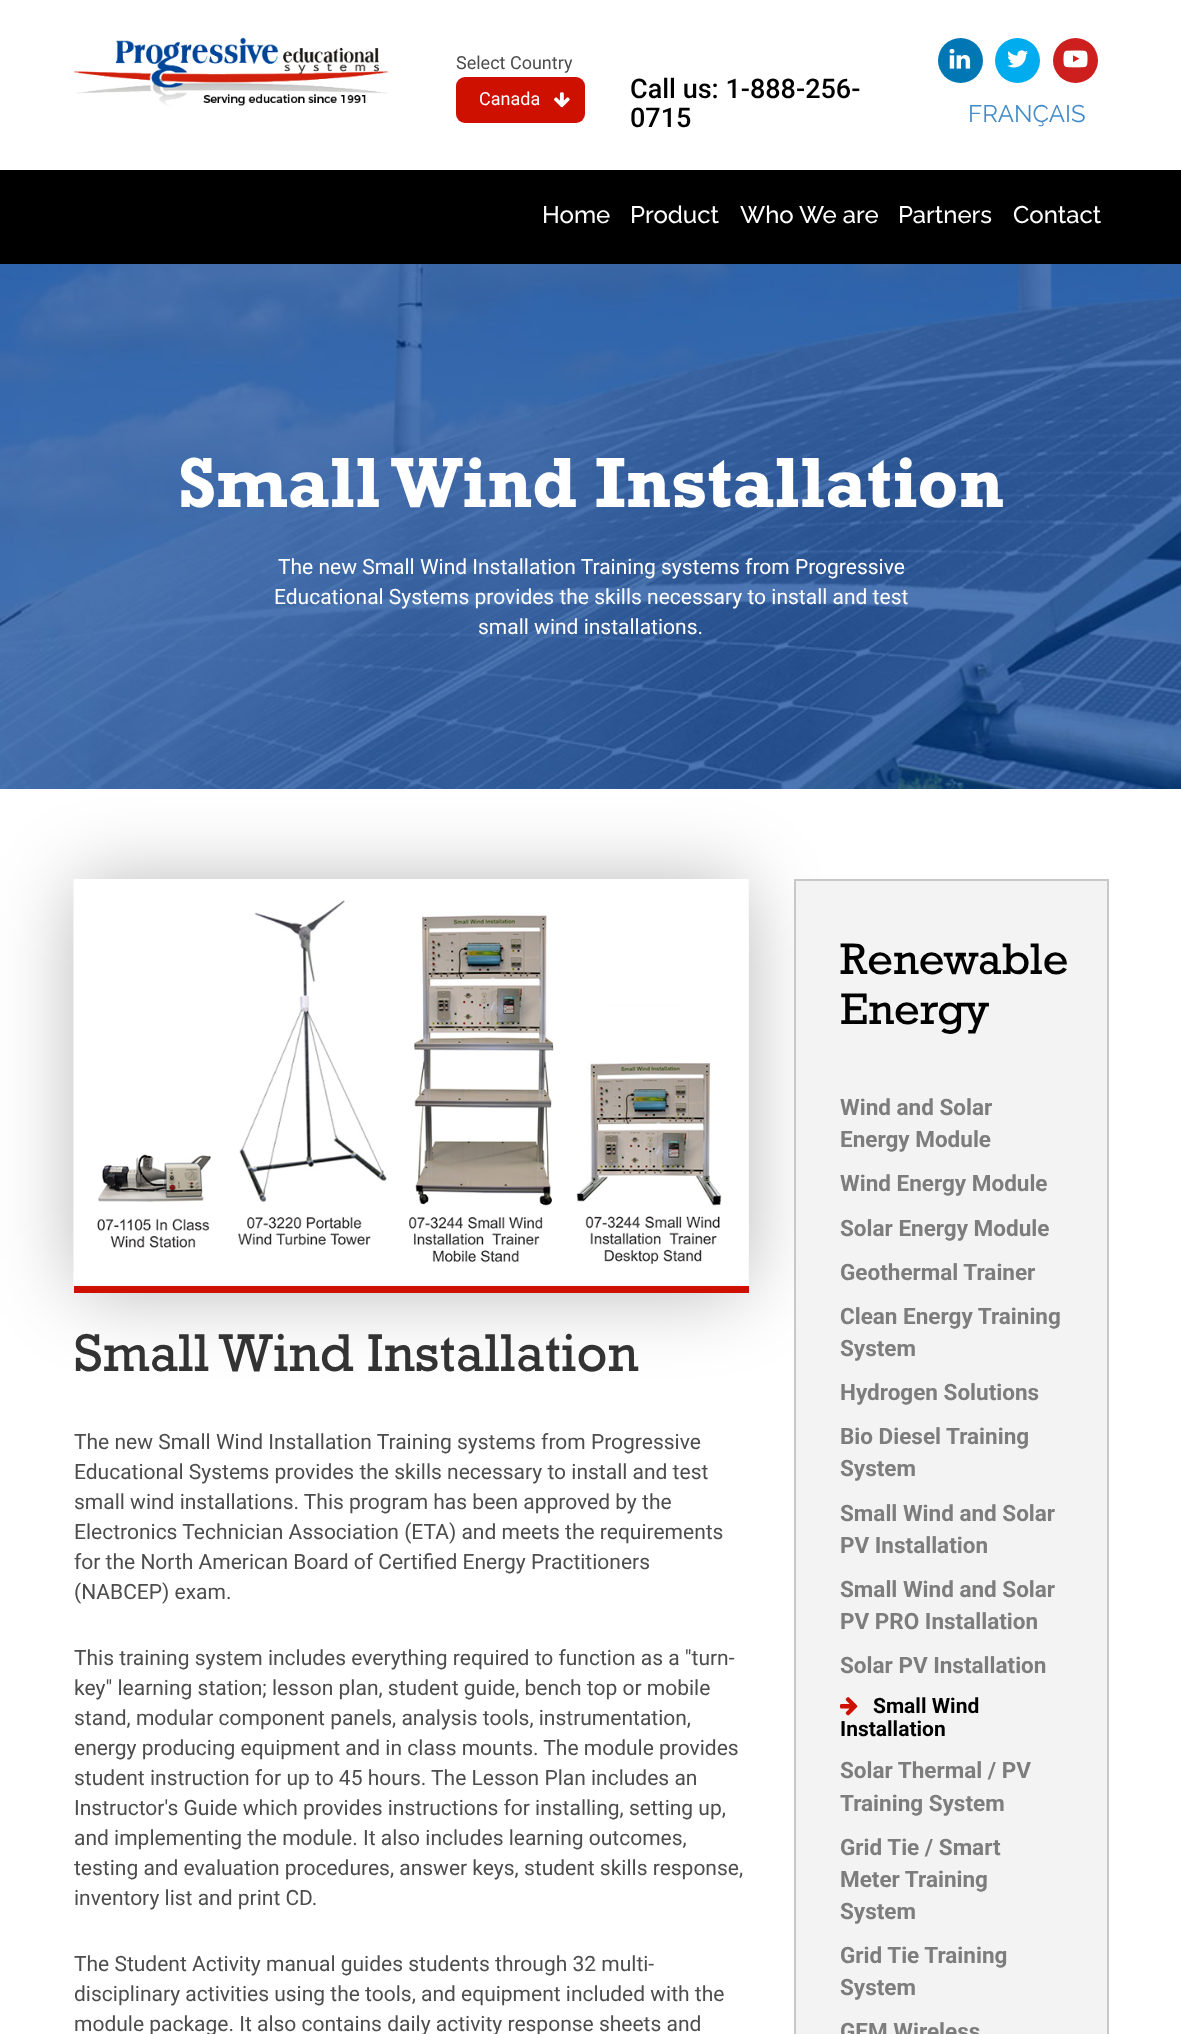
<!DOCTYPE html>
<meta charset="utf-8">
<style>body { margin: 0 } canvas { display: block }</style>
<canvas id="canvas" width="1181" height="2034"></canvas>
<script type="module">
  const canvas = document.getElementById("canvas");
  const ctx = canvas.getContext("2d");
  ctx.miterLimit = 4;
  ctx.fontKerning = "normal";
  async function loadImage(src) {
    const img = new Image();
    img.src = src;
    await img.decode();
    return img;
  }

  ctx.fillStyle = "#ffffff";
  ctx.fillRect(0, 0, 1181, 2034);
  ctx.drawImage(await loadImage("img1.png"), 73, 37, 316, 69);
  ctx.font = "18px Roboto";
  ctx.fillStyle = "#4d4d4d";
  ctx.fillText("Select Country", 456, 69);
  ctx.fillStyle = "#cd1000";
  ctx.beginPath();
  ctx.roundRect(456, 77, 129, 46, 9);
  ctx.fill();
  ctx.fillStyle = "#ffffff";
  ctx.fillText("Canada", 479, 105);
  ctx.drawImage(await loadImage("img2.png"), 554, 92, 16, 16);
  ctx.font = "500 27px Roboto";
  ctx.fillStyle = "#000000";
  ctx.fillText("Call us: 1-888-256-", 630, 98);
  ctx.fillText("0715", 630, 127);
  ctx.fillStyle = "#0077b5";
  ctx.beginPath();
  ctx.arc(960.5, 60.5, 22.5, 0, Math.PI * 2);
  ctx.fill();
  ctx.drawImage(await loadImage("img3.png"), 949, 48, 22, 21);
  ctx.fillStyle = "#00aced";
  ctx.beginPath();
  ctx.arc(1017.5, 60.5, 22.5, 0, Math.PI * 2);
  ctx.fill();
  ctx.drawImage(await loadImage("img4.png"), 1007, 50, 21, 18);
  ctx.fillStyle = "#cd201e";
  ctx.beginPath();
  ctx.arc(1075.5, 60.5, 22.5, 0, Math.PI * 2);
  ctx.fill();
  ctx.drawImage(await loadImage("img5.png"), 1063, 50, 25, 18);
  ctx.font = "24px Raleway";
  ctx.fillStyle = "#428bca";
  ctx.fillText("FRANÇAIS", 968, 122);
  ctx.fillStyle = "#000000";
  ctx.fillRect(0, 170, 1181, 94);
  ctx.font = "500 24px Raleway";
  ctx.fillStyle = "#ffffff";
  ctx.fillText("Home", 542, 223);
  ctx.fillText("Product", 630, 223);
  ctx.fillText("Who We are", 740, 223);
  ctx.fillText("Partners", 898, 223);
  ctx.fillText("Contact", 1013, 223);
  ctx.drawImage(await loadImage("img6.png"), 0, 264, 1181, 525);
  ctx.font = "bold 72px Rockwell";
  ctx.fillText("Small Wind Installation", 178, 507);
  ctx.font = "21px Roboto";
  ctx.fillText("The new Small Wind Installation Training systems from Progressive", 278, 574);
  ctx.fillText("Educational Systems provides the skills necessary to install and test", 274, 604);
  ctx.fillText("small wind installations.", 478, 634);
  ctx.fillStyle = "rgba(0, 0, 0, 0.3)";
  ctx.filter = "blur(41px)";
  ctx.beginPath();
  ctx.rect(78, 884, 666, 405);
  ctx.fill();
  ctx.filter = "none";
  ctx.fillStyle = "#fafafa";
  ctx.fillRect(74, 879, 675, 407);
  ctx.fillStyle = "#cd1000";
  ctx.fillRect(74, 1286, 675, 7);
  ctx.drawImage(await loadImage("img7.png"), 73, 879, 675, 406);
  ctx.font = "54px Rockwell";
  ctx.fillStyle = "#333333";
  ctx.fillText("Small Wind Installation", 74, 1371);
  ctx.font = "21px Roboto";
  ctx.fillStyle = "#4d4d4d";
  ctx.fillText("The new Small Wind Installation Training systems from Progressive", 74, 1449);
  ctx.fillText("Educational Systems provides the skills necessary to install and test", 74, 1479);
  ctx.fillText("small wind installations. This program has been approved by the", 74, 1509);
  ctx.fillText("Electronics Technician Association (ETA) and meets the requirements", 74, 1539);
  ctx.fillText("for the North American Board of Certified Energy Practitioners", 74, 1569);
  ctx.fillText("(NABCEP) exam.", 74, 1599);
  ctx.fillText("This training system includes everything required to function as a \"turn-", 74, 1665);
  ctx.fillText("key\" learning station; lesson plan, student guide, bench top or mobile", 74, 1695);
  ctx.fillText("stand, modular component panels, analysis tools, instrumentation,", 74, 1725);
  ctx.fillText("energy producing equipment and in class mounts. The module provides", 74, 1755);
  ctx.fillText("student instruction for up to 45 hours. The Lesson Plan includes an", 74, 1785);
  ctx.fillText("Instructor's Guide which provides instructions for installing, setting up,", 74, 1815);
  ctx.fillText("and implementing the module. It also includes learning outcomes,", 74, 1845);
  ctx.fillText("testing and evaluation procedures, answer keys, student skills response,", 74, 1875);
  ctx.fillText("inventory list and print CD.", 74, 1905);
  ctx.fillText("The Student Activity manual guides students through 32 multi-", 74, 1971);
  ctx.fillText("disciplinary activities using the tools, and equipment included with the", 74, 2001);
  ctx.fillText("module package. It also contains daily activity response sheets and", 74, 2031);
  ctx.fillStyle = "#f3f3f3";
  ctx.beginPath();
  ctx.rect(795, 880, 313, 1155);
  ctx.fill();
  ctx.strokeStyle = "#c8c8c8";
  ctx.lineWidth = 2;
  ctx.stroke();
  ctx.font = "45px Rockwell";
  ctx.fillStyle = "#000000";
  ctx.fillText("Renewable", 840, 974);
  ctx.fillText("Energy", 840, 1024);
  ctx.font = "bold 22.5px Roboto";
  ctx.fillStyle = "#7d7d7d";
  ctx.fillText("Wind and Solar", 840, 1115);
  ctx.fillText("Energy Module", 840, 1147);
  ctx.fillText("Wind Energy Module", 840, 1191);
  ctx.fillText("Solar Energy Module", 840, 1236);
  ctx.fillText("Geothermal Trainer", 840, 1280);
  ctx.fillText("Clean Energy Training", 840, 1324);
  ctx.fillText("System", 840, 1356);
  ctx.fillText("Hydrogen Solutions", 840, 1400);
  ctx.fillText("Bio Diesel Training", 840, 1444);
  ctx.fillText("System", 840, 1476);
  ctx.fillText("Small Wind and Solar", 840, 1521);
  ctx.fillText("PV Installation", 840, 1553);
  ctx.fillText("Small Wind and Solar", 840, 1597);
  ctx.fillText("PV PRO Installation", 840, 1629);
  ctx.fillText("Solar PV Installation", 840, 1673);
  ctx.drawImage(await loadImage("img8.png"), 840, 1697, 18, 19);
  ctx.font = "bold 21px Roboto";
  ctx.fillStyle = "#000000";
  ctx.fillText("Small Wind", 873, 1713);
  ctx.fillText("Installation", 840, 1736);
  ctx.font = "bold 22.5px Roboto";
  ctx.fillStyle = "#7d7d7d";
  ctx.fillText("Solar Thermal / PV", 840, 1778);
  ctx.fillText("Training System", 840, 1811);
  ctx.fillText("Grid Tie / Smart", 840, 1855);
  ctx.fillText("Meter Training", 840, 1887);
  ctx.fillText("System", 840, 1919);
  ctx.fillText("Grid Tie Training", 840, 1963);
  ctx.fillText("System", 840, 1995);
  ctx.fillText("GEM Wireless", 840, 2039);
</script>
